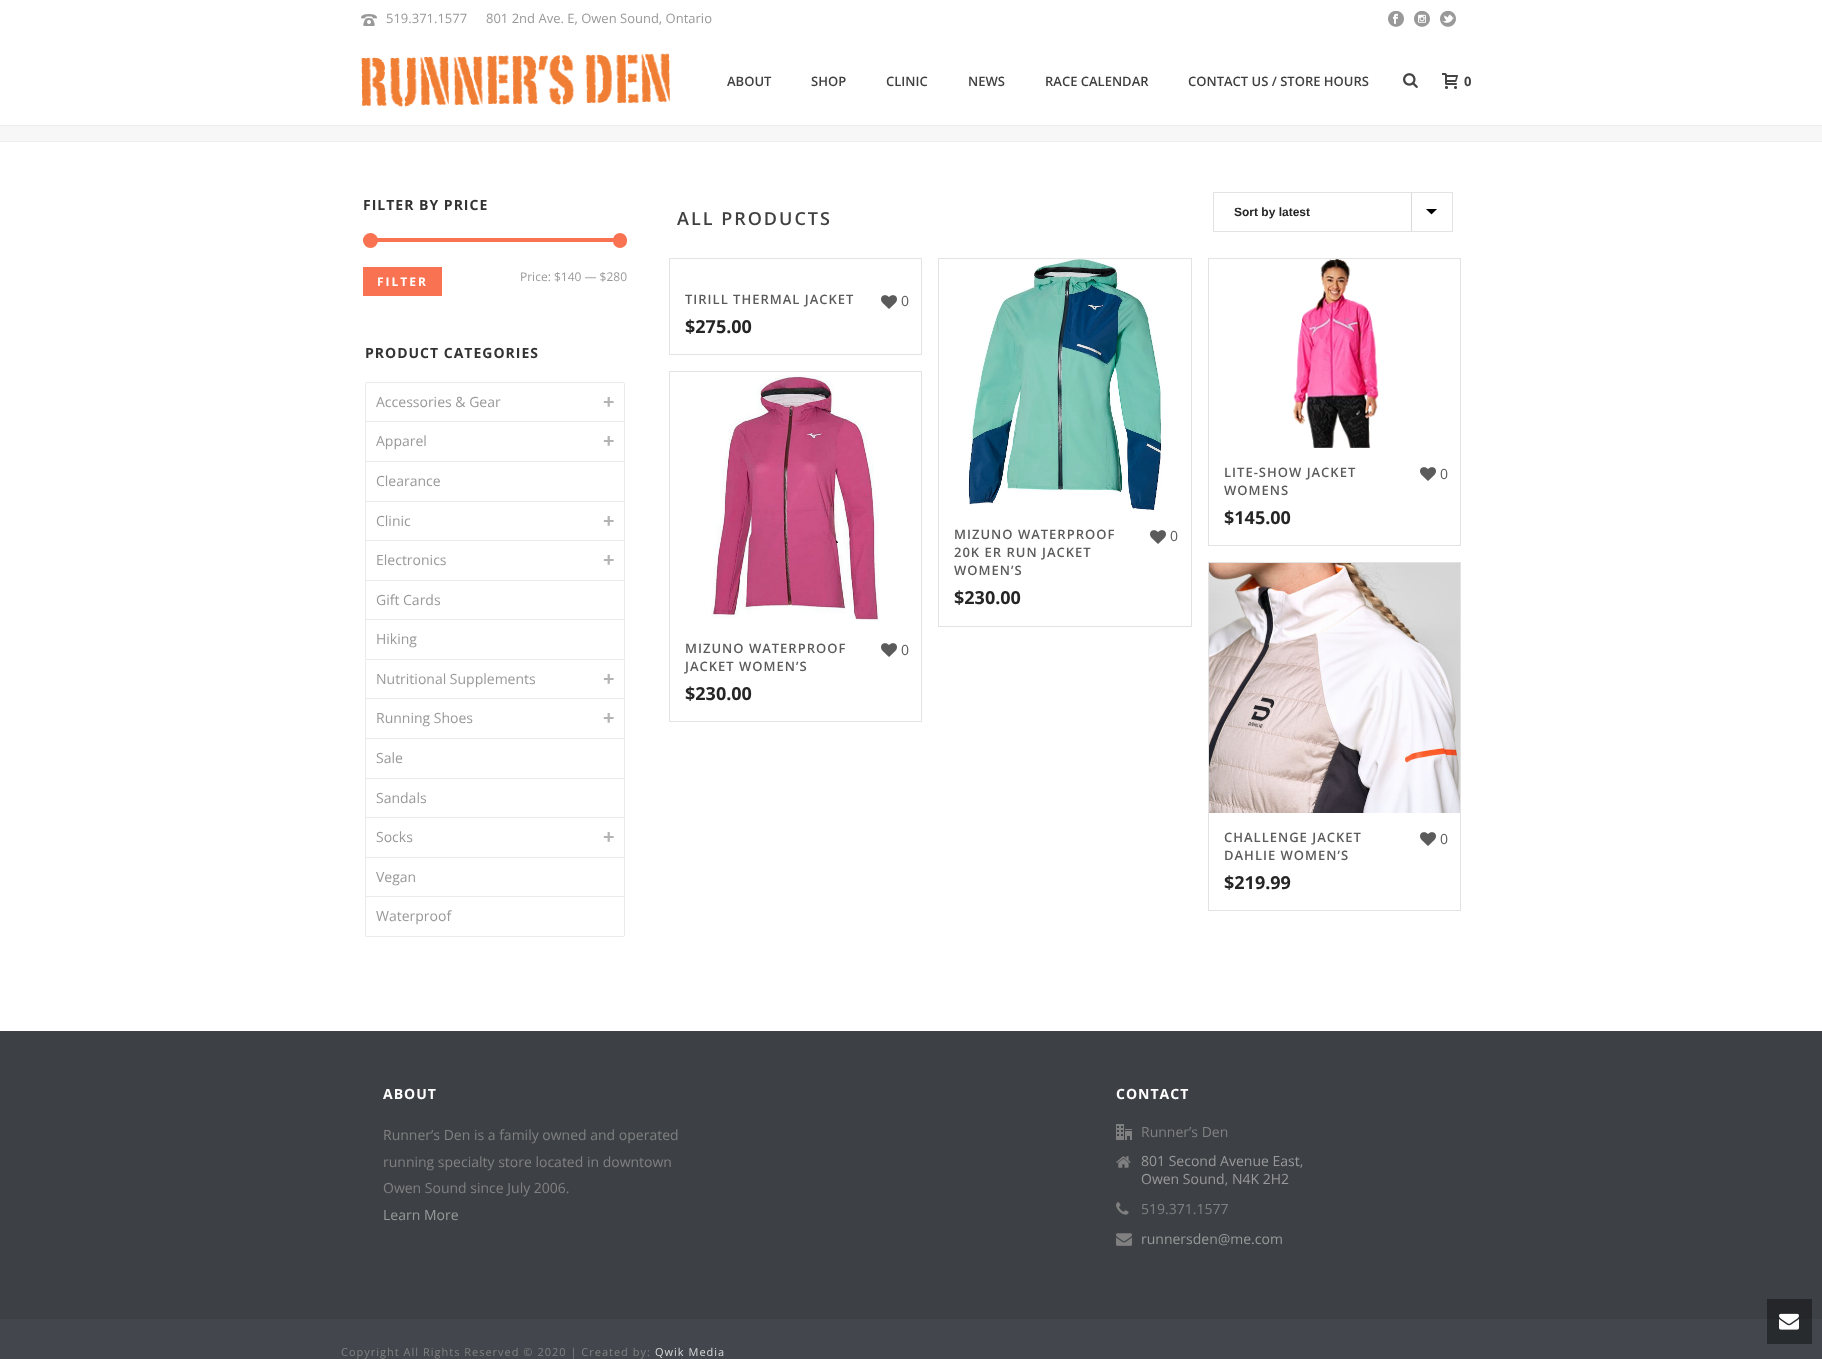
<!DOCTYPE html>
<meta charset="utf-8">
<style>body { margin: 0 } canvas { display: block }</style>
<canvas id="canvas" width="1822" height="1359"></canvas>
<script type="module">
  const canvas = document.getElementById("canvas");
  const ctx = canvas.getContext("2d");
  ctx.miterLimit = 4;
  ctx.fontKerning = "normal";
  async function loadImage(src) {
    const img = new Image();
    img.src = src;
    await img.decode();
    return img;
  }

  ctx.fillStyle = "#ffffff";
  ctx.fillRect(0, 0, 1822, 1359);
  ctx.fillStyle = "#f7f7f7";
  ctx.fillRect(0, 126, 1822, 15);
  ctx.fillStyle = "#ededed";
  ctx.fillRect(0, 141, 1822, 1);
  ctx.drawImage(await loadImage("img1.png"), 361, 14, 16, 12);
  ctx.font = "13px Open Sans";
  ctx.fillStyle = "#999999";
  ctx.fillText("519.371.1577", 386, 23);
  ctx.fillText("801 2nd Ave. E, Owen Sound, Ontario", 486, 23);
  ctx.drawImage(await loadImage("img2.png"), 1388, 11, 16, 16);
  ctx.drawImage(await loadImage("img3.png"), 1414, 11, 16, 16);
  ctx.drawImage(await loadImage("img4.png"), 1440, 11, 16, 16);
  ctx.fillStyle = "#ededed";
  ctx.fillRect(0, 125, 1822, 1);
  ctx.drawImage(await loadImage("img5.png"), 361, 53, 309, 54);
  ctx.font = "600 13px Open Sans";
  ctx.fillStyle = "#404040";
  ctx.fillText("ABOUT", 727, 86);
  ctx.fillText("SHOP", 811, 86);
  ctx.fillText("CLINIC", 886, 86);
  ctx.fillText("NEWS", 968, 86);
  ctx.fillText("RACE CALENDAR", 1045, 86);
  ctx.fillText("CONTACT US / STORE HOURS", 1188, 86);
  ctx.drawImage(await loadImage("img6.png"), 1403, 73, 15, 15);
  ctx.drawImage(await loadImage("img7.png"), 1442, 73, 16, 16);
  ctx.font = "bold 13px Open Sans";
  ctx.fillText("0", 1464, 86);
  ctx.letterSpacing = "1px";
  ctx.font = "bold 14px Open Sans";
  ctx.fillStyle = "#333333";
  ctx.fillText("FILTER BY PRICE", 363, 210);
  ctx.fillStyle = "#f97352";
  ctx.beginPath();
  ctx.roundRect(363, 238, 264, 4, 2);
  ctx.fill();
  ctx.beginPath();
  ctx.arc(370.5, 240.5, 7.5, 0, Math.PI * 2);
  ctx.fill();
  ctx.beginPath();
  ctx.roundRect(613, 233, 14, 15, 7);
  ctx.fill();
  ctx.fillRect(363, 267, 79, 29);
  ctx.letterSpacing = "2px";
  ctx.font = "bold 12px Open Sans";
  ctx.fillStyle = "#ffffff";
  ctx.fillText("FILTER", 377, 286);
  ctx.letterSpacing = "0px";
  ctx.font = "12px Open Sans";
  ctx.fillStyle = "#999999";
  ctx.fillText("Price: $140 — $280", 520, 281);
  ctx.letterSpacing = "1px";
  ctx.font = "bold 14px Open Sans";
  ctx.fillStyle = "#333333";
  ctx.fillText("PRODUCT CATEGORIES", 365, 358);
  ctx.beginPath();
  ctx.roundRect(365.5, 382.5, 259, 554, 1.5);
  ctx.strokeStyle = "#ebebeb";
  ctx.stroke();
  ctx.fillStyle = "#ebebeb";
  ctx.fillRect(366, 421, 258, 1);
  ctx.letterSpacing = "0px";
  ctx.font = "14px Open Sans";
  ctx.fillStyle = "#999999";
  ctx.fillText("Accessories & Gear", 376, 407);
  ctx.font = "bold 20px Open Sans";
  ctx.fillStyle = "#b3b3b3";
  ctx.fillText("+", 603, 409);
  ctx.fillStyle = "#ebebeb";
  ctx.fillRect(366, 461, 258, 1);
  ctx.font = "14px Open Sans";
  ctx.fillStyle = "#999999";
  ctx.fillText("Apparel", 376, 446);
  ctx.font = "bold 20px Open Sans";
  ctx.fillStyle = "#b3b3b3";
  ctx.fillText("+", 603, 448);
  ctx.fillStyle = "#ebebeb";
  ctx.fillRect(366, 501, 258, 1);
  ctx.font = "14px Open Sans";
  ctx.fillStyle = "#999999";
  ctx.fillText("Clearance", 376, 486);
  ctx.fillStyle = "#ebebeb";
  ctx.fillRect(366, 540, 258, 1);
  ctx.fillStyle = "#999999";
  ctx.fillText("Clinic", 376, 526);
  ctx.font = "bold 20px Open Sans";
  ctx.fillStyle = "#b3b3b3";
  ctx.fillText("+", 603, 528);
  ctx.fillStyle = "#ebebeb";
  ctx.fillRect(366, 580, 258, 1);
  ctx.font = "14px Open Sans";
  ctx.fillStyle = "#999999";
  ctx.fillText("Electronics", 376, 565);
  ctx.font = "bold 20px Open Sans";
  ctx.fillStyle = "#b3b3b3";
  ctx.fillText("+", 603, 567);
  ctx.fillStyle = "#ebebeb";
  ctx.fillRect(366, 619, 258, 1);
  ctx.font = "14px Open Sans";
  ctx.fillStyle = "#999999";
  ctx.fillText("Gift Cards", 376, 605);
  ctx.fillStyle = "#ebebeb";
  ctx.fillRect(366, 659, 258, 1);
  ctx.fillStyle = "#999999";
  ctx.fillText("Hiking", 376, 644);
  ctx.fillStyle = "#ebebeb";
  ctx.fillRect(366, 698, 258, 1);
  ctx.fillStyle = "#999999";
  ctx.fillText("Nutritional Supplements", 376, 684);
  ctx.font = "bold 20px Open Sans";
  ctx.fillStyle = "#b3b3b3";
  ctx.fillText("+", 603, 686);
  ctx.fillStyle = "#ebebeb";
  ctx.fillRect(366, 738, 258, 1);
  ctx.font = "14px Open Sans";
  ctx.fillStyle = "#999999";
  ctx.fillText("Running Shoes", 376, 723);
  ctx.font = "bold 20px Open Sans";
  ctx.fillStyle = "#b3b3b3";
  ctx.fillText("+", 603, 725);
  ctx.fillStyle = "#ebebeb";
  ctx.fillRect(366, 778, 258, 1);
  ctx.font = "14px Open Sans";
  ctx.fillStyle = "#999999";
  ctx.fillText("Sale", 376, 763);
  ctx.fillStyle = "#ebebeb";
  ctx.fillRect(366, 817, 258, 1);
  ctx.fillStyle = "#999999";
  ctx.fillText("Sandals", 376, 803);
  ctx.fillStyle = "#ebebeb";
  ctx.fillRect(366, 857, 258, 1);
  ctx.fillStyle = "#999999";
  ctx.fillText("Socks", 376, 842);
  ctx.font = "bold 20px Open Sans";
  ctx.fillStyle = "#b3b3b3";
  ctx.fillText("+", 603, 844);
  ctx.fillStyle = "#ebebeb";
  ctx.fillRect(366, 896, 258, 1);
  ctx.font = "14px Open Sans";
  ctx.fillStyle = "#999999";
  ctx.fillText("Vegan", 376, 882);
  ctx.fillText("Waterproof", 376, 921);
  ctx.letterSpacing = "2px";
  ctx.font = "600 18px Open Sans";
  ctx.fillStyle = "#404040";
  ctx.fillText("ALL PRODUCTS", 677, 225);
  ctx.drawImage(await loadImage("img8.png"), 1411, 193, 26, 38);
  ctx.strokeStyle = "#e3e3e3";
  ctx.strokeRect(1213.5, 192.5, 239, 39);
  ctx.letterSpacing = "0px";
  ctx.font = "bold 12px Liberation Sans";
  ctx.fillStyle = "#252525";
  ctx.fillText("Sort by latest", 1234, 216);
  ctx.strokeRect(669.5, 258.5, 252, 96);
  ctx.letterSpacing = "1px";
  ctx.font = "600 13px Open Sans";
  ctx.fillStyle = "#5b5b5b";
  ctx.fillText("TIRILL THERMAL JACKET", 685, 304);
  ctx.drawImage(await loadImage("img9.png"), 881, 295, 16, 14);
  ctx.letterSpacing = "0px";
  ctx.font = "14px Open Sans";
  ctx.fillText("0", 901, 306);
  ctx.font = "bold 18px Open Sans";
  ctx.fillStyle = "#252525";
  ctx.fillText("$275.00", 685, 333);
  ctx.strokeRect(1208.5, 258.5, 252, 287);
  ctx.drawImage(await loadImage("img10.png"), 1292, 259, 87, 189);
  ctx.letterSpacing = "1px";
  ctx.font = "600 13px Open Sans";
  ctx.fillStyle = "#5b5b5b";
  ctx.fillText("LITE-SHOW JACKET", 1224, 477);
  ctx.fillText("WOMENS", 1224, 495);
  ctx.drawImage(await loadImage("img9.png"), 1420, 467, 16, 14);
  ctx.letterSpacing = "0px";
  ctx.font = "14px Open Sans";
  ctx.fillText("0", 1440, 479);
  ctx.font = "bold 18px Open Sans";
  ctx.fillStyle = "#252525";
  ctx.fillText("$145.00", 1224, 524);
  ctx.strokeRect(938.5, 258.5, 253, 368);
  ctx.drawImage(await loadImage("img11.png"), 968, 259, 194, 251);
  ctx.letterSpacing = "1px";
  ctx.font = "600 13px Open Sans";
  ctx.fillStyle = "#5b5b5b";
  ctx.fillText("MIZUNO WATERPROOF", 954, 539);
  ctx.fillText("20K ER RUN JACKET", 954, 557);
  ctx.fillText("WOMEN’S", 954, 575);
  ctx.drawImage(await loadImage("img9.png"), 1150, 530, 16, 14);
  ctx.letterSpacing = "0px";
  ctx.font = "14px Open Sans";
  ctx.fillText("0", 1170, 541);
  ctx.font = "bold 18px Open Sans";
  ctx.fillStyle = "#252525";
  ctx.fillText("$230.00", 954, 604);
  ctx.strokeRect(669.5, 371.5, 252, 350);
  ctx.drawImage(await loadImage("img12.png"), 710, 375, 169, 246);
  ctx.letterSpacing = "1px";
  ctx.font = "600 13px Open Sans";
  ctx.fillStyle = "#5b5b5b";
  ctx.fillText("MIZUNO WATERPROOF", 685, 653);
  ctx.fillText("JACKET WOMEN’S", 685, 671);
  ctx.drawImage(await loadImage("img9.png"), 881, 643, 16, 14);
  ctx.letterSpacing = "0px";
  ctx.font = "14px Open Sans";
  ctx.fillText("0", 901, 655);
  ctx.font = "bold 18px Open Sans";
  ctx.fillStyle = "#252525";
  ctx.fillText("$230.00", 685, 700);
  ctx.strokeRect(1208.5, 562.5, 252, 348);
  ctx.drawImage(await loadImage("img13.png"), 1209, 563, 251, 250);
  ctx.letterSpacing = "1px";
  ctx.font = "600 13px Open Sans";
  ctx.fillStyle = "#5b5b5b";
  ctx.fillText("CHALLENGE JACKET", 1224, 842);
  ctx.fillText("DAHLIE WOMEN’S", 1224, 860);
  ctx.drawImage(await loadImage("img9.png"), 1420, 832, 16, 14);
  ctx.letterSpacing = "0px";
  ctx.font = "14px Open Sans";
  ctx.fillText("0", 1440, 844);
  ctx.font = "bold 18px Open Sans";
  ctx.fillStyle = "#252525";
  ctx.fillText("$219.99", 1224, 889);
  ctx.fillStyle = "#3d4045";
  ctx.fillRect(0, 1031, 1822, 288);
  ctx.fillStyle = "#252629";
  ctx.fillRect(1767, 1299, 45, 20);
  ctx.letterSpacing = "1px";
  ctx.font = "bold 14px Open Sans";
  ctx.fillStyle = "#ffffff";
  ctx.fillText("ABOUT", 383, 1099);
  ctx.letterSpacing = "0px";
  ctx.font = "14px Open Sans";
  ctx.fillStyle = "#808080";
  ctx.fillText("Runner’s Den is a family owned and operated", 383, 1140);
  ctx.fillText("running specialty store located in downtown", 383, 1167);
  ctx.fillText("Owen Sound since July 2006.", 383, 1193);
  ctx.fillStyle = "#999999";
  ctx.fillText("Learn More", 383, 1220);
  ctx.letterSpacing = "1px";
  ctx.font = "bold 14px Open Sans";
  ctx.fillStyle = "#ffffff";
  ctx.fillText("CONTACT", 1116, 1099);
  ctx.drawImage(await loadImage("img14.png"), 1116, 1124, 16, 16);
  ctx.letterSpacing = "0px";
  ctx.font = "14px Open Sans";
  ctx.fillStyle = "#808080";
  ctx.fillText("Runner’s Den", 1141, 1137);
  ctx.drawImage(await loadImage("img15.png"), 1116, 1156, 15, 12);
  ctx.fillStyle = "#999999";
  ctx.fillText("801 Second Avenue East,", 1141, 1166);
  ctx.fillText("Owen Sound, N4K 2H2", 1141, 1184);
  ctx.drawImage(await loadImage("img16.png"), 1116, 1202, 13, 13);
  ctx.fillStyle = "#808080";
  ctx.fillText("519.371.1577", 1141, 1214);
  ctx.drawImage(await loadImage("img17.png"), 1116, 1233, 16, 13);
  ctx.fillStyle = "#999999";
  ctx.fillText("runnersden@me.com", 1141, 1244);
  ctx.fillStyle = "#43474d";
  ctx.fillRect(0, 1319, 1822, 40);
  ctx.fillStyle = "#282b2e";
  ctx.fillRect(1767, 1319, 45, 25);
  ctx.letterSpacing = "1px";
  ctx.font = "11px Open Sans";
  ctx.fillStyle = "#808080";
  ctx.fillText("Copyright All Rights Reserved © 2020 | Created by:", 341, 1356);
  ctx.fillStyle = "#d9dadb";
  ctx.fillText("Qwik Media", 655, 1356);
  ctx.drawImage(await loadImage("img18.png"), 1779, 1313, 20, 17);
</script>
